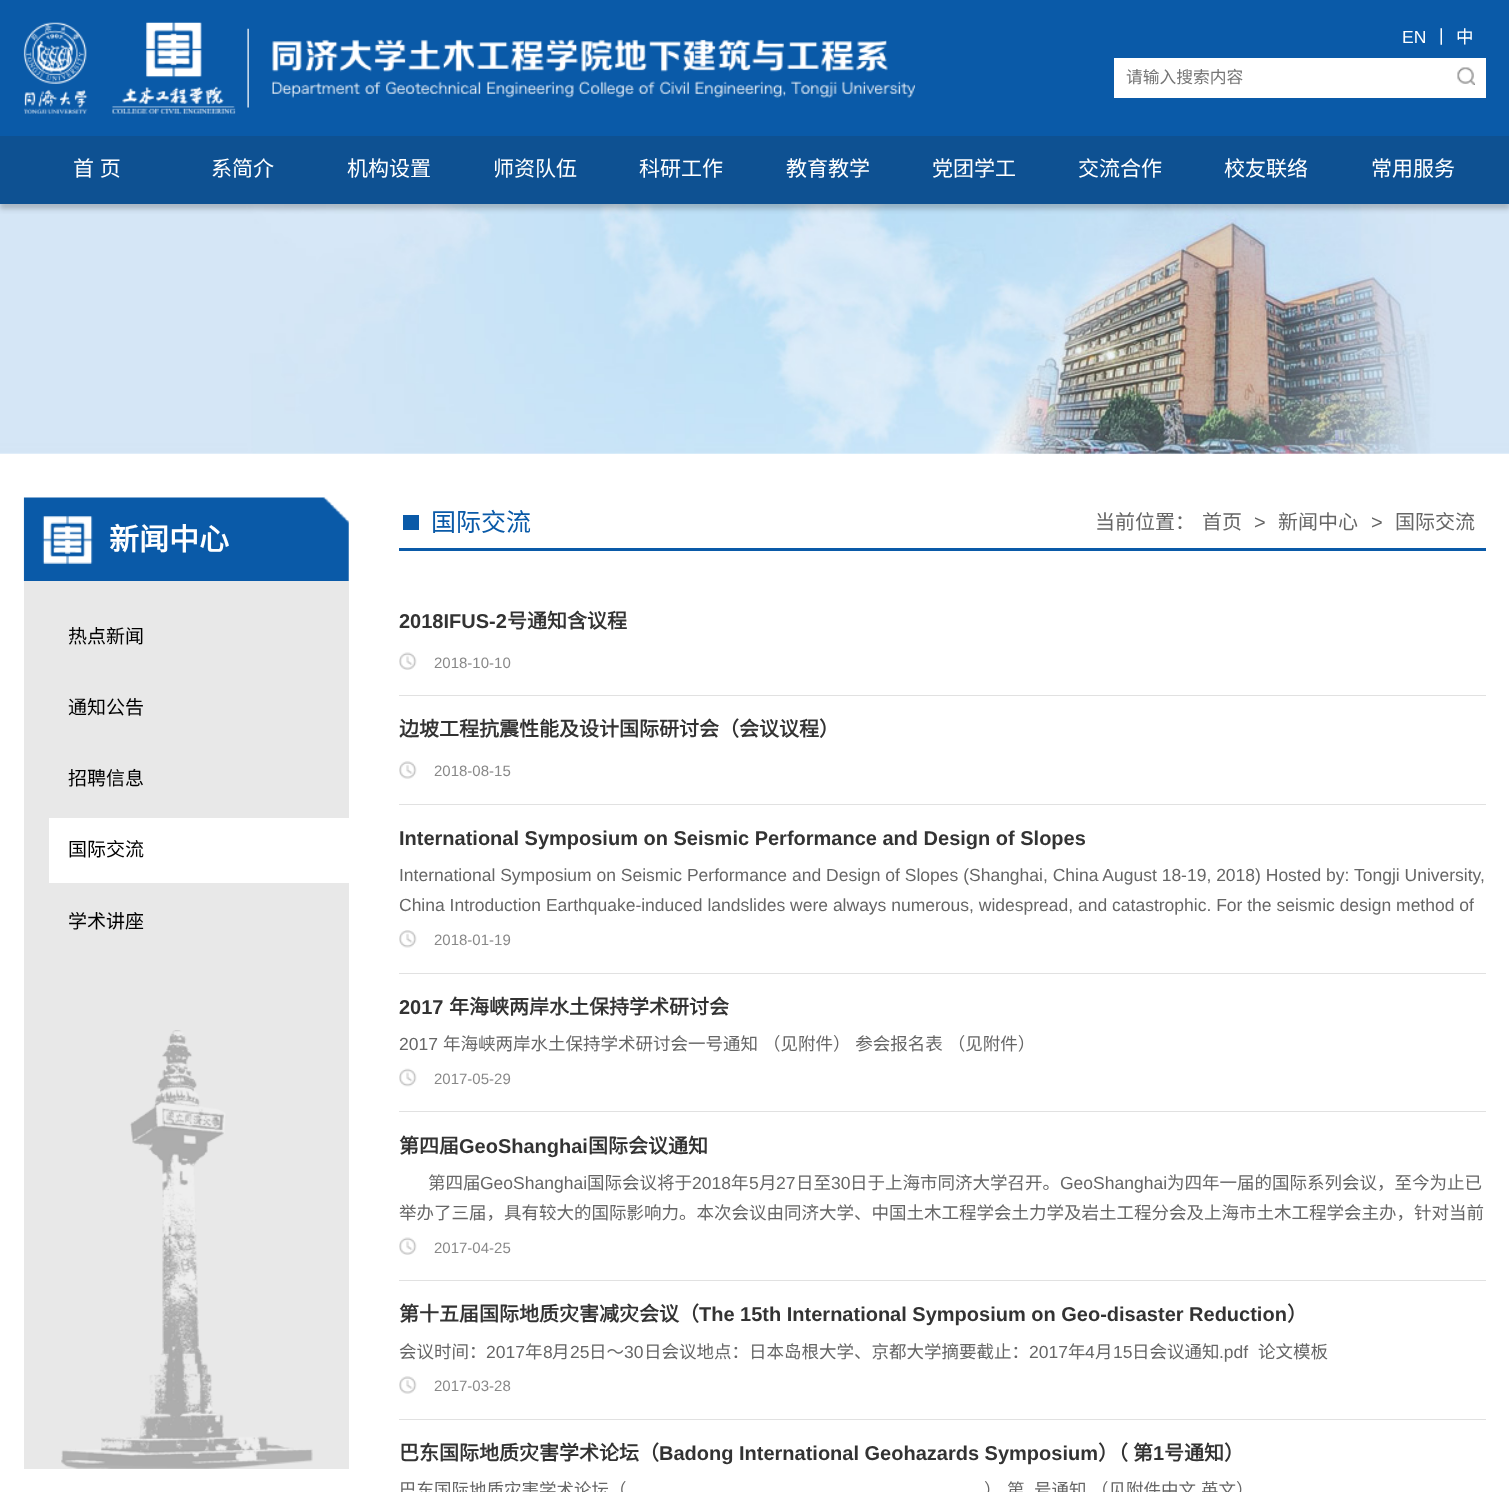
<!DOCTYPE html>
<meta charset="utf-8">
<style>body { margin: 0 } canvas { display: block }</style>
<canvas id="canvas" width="1509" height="1492"></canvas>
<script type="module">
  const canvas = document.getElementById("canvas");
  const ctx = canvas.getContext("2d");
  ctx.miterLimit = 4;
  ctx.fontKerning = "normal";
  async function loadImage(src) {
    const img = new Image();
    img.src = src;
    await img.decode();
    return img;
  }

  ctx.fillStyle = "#ffffff";
  ctx.fillRect(0, 0, 1509, 1492);
  ctx.fillStyle = "#0a5aa8";
  ctx.fillRect(0, 0, 1509, 136);
  ctx.drawImage(await loadImage("img1.png"), 23, 22, 892, 92);
  ctx.font = "17.5px Liberation Sans";
  ctx.fillStyle = "#ffffff";
  ctx.fillText("EN", 1402, 43);
  ctx.fillText("|", 1439, 41);
  ctx.font = "17.5px Noto Sans CJK SC";
  ctx.fillText("中", 1456, 43);
  ctx.fillRect(1114, 58, 372, 40);
  ctx.font = "16.75px Noto Sans CJK SC";
  ctx.fillStyle = "#757575";
  ctx.fillText("请输入搜索内容", 1126, 83);
  ctx.drawImage(await loadImage("img2.png"), 1457, 67, 18, 18);
  ctx.drawImage(await loadImage("img3.png"), 0, 204, 1509, 250);
  ctx.fillStyle = "rgba(0, 0, 0, 0.2)";
  ctx.filter = "blur(2.5px)";
  ctx.beginPath();
  ctx.rect(0, 141, 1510, 68);
  ctx.fill();
  ctx.filter = "none";
  ctx.fillStyle = "#0e5192";
  ctx.fillRect(0, 136, 1509, 68);
  ctx.wordSpacing = "1px";
  ctx.font = "21px Noto Sans CJK SC";
  ctx.fillStyle = "#ffffff";
  ctx.fillText("首 页", 73, 176);
  ctx.wordSpacing = "0px";
  ctx.fillText("系简介", 211, 176);
  ctx.fillText("机构设置", 347, 176);
  ctx.fillText("师资队伍", 493, 176);
  ctx.fillText("科研工作", 639, 176);
  ctx.fillText("教育教学", 786, 176);
  ctx.fillText("党团学工", 932, 176);
  ctx.fillText("交流合作", 1078, 176);
  ctx.fillText("校友联络", 1224, 176);
  ctx.fillText("常用服务", 1371, 176);
  ctx.drawImage(await loadImage("img4.png"), 23, 497, 326, 84);
  ctx.font = "bold 30px Noto Sans CJK SC";
  ctx.fillText("新闻中心", 109, 550);
  ctx.fillStyle = "#e8e8e8";
  ctx.fillRect(24, 581, 325, 888);
  ctx.drawImage(await loadImage("img5.png"), 61, 1030, 252, 439);
  ctx.font = "19px Noto Sans CJK SC";
  ctx.fillStyle = "#000000";
  ctx.fillText("热点新闻", 68, 643);
  ctx.fillText("通知公告", 68, 714);
  ctx.fillText("招聘信息", 68, 785);
  ctx.fillStyle = "#ffffff";
  ctx.fillRect(49, 818, 300, 65);
  ctx.fillStyle = "#000000";
  ctx.fillText("国际交流", 68, 856);
  ctx.fillText("学术讲座", 68, 928);
  ctx.fillStyle = "#0a5aa8";
  ctx.fillRect(399, 548, 1087, 3);
  ctx.fillRect(403, 515, 16, 15);
  ctx.font = "25px Noto Sans CJK SC";
  ctx.fillText("国际交流", 431, 531);
  ctx.font = "20px Noto Sans CJK SC";
  ctx.fillStyle = "#666666";
  ctx.fillText("当前位置：", 1095, 529);
  ctx.fillText("首页", 1202, 529);
  ctx.font = "20px Liberation Sans";
  ctx.fillText(">", 1254, 529);
  ctx.font = "20px Noto Sans CJK SC";
  ctx.fillText("新闻中心", 1278, 529);
  ctx.font = "20px Liberation Sans";
  ctx.fillText(">", 1371, 529);
  ctx.font = "20px Noto Sans CJK SC";
  ctx.fillText("国际交流", 1395, 529);
  ctx.fillStyle = "#e1e1e1";
  ctx.fillRect(399, 695, 1087, 1);
  ctx.font = "bold 20px Liberation Sans";
  ctx.fillStyle = "#333333";
  ctx.fillText("2018IFUS-2", 399, 628);
  ctx.font = "bold 20px Noto Sans CJK SC";
  ctx.fillText("号通知含议程", 507, 628);
  ctx.drawImage(await loadImage("img6.png"), 399, 652, 18, 18);
  ctx.font = "15px Liberation Sans";
  ctx.fillStyle = "#888888";
  ctx.fillText("2018-10-10", 434, 668);
  ctx.fillStyle = "#e1e1e1";
  ctx.fillRect(399, 804, 1087, 1);
  ctx.font = "bold 20px Noto Sans CJK SC";
  ctx.fillStyle = "#333333";
  ctx.fillText("边坡工程抗震性能及设计国际研讨会（会议议程）", 399, 736);
  ctx.drawImage(await loadImage("img7.png"), 399, 761, 18, 18);
  ctx.font = "15px Liberation Sans";
  ctx.fillStyle = "#888888";
  ctx.fillText("2018-08-15", 434, 776);
  ctx.fillStyle = "#e1e1e1";
  ctx.fillRect(399, 973, 1087, 1);
  ctx.font = "bold 20px Liberation Sans";
  ctx.fillStyle = "#333333";
  ctx.fillText("International Symposium on Seismic Performance and Design of Slopes", 399, 845);
  ctx.font = "17.5px Liberation Sans";
  ctx.fillStyle = "#666666";
  ctx.fillText("International Symposium on Seismic Performance and Design of Slopes (Shanghai, China August 18-19, 2018) Hosted by: Tongji University,", 399, 881);
  ctx.fillText("China Introduction Earthquake-induced landslides were always numerous, widespread, and catastrophic. For the seismic design method of", 399, 911);
  ctx.drawImage(await loadImage("img8.png"), 399, 930, 18, 18);
  ctx.font = "15px Liberation Sans";
  ctx.fillStyle = "#888888";
  ctx.fillText("2018-01-19", 434, 945);
  ctx.fillStyle = "#e1e1e1";
  ctx.fillRect(399, 1111, 1087, 1);
  ctx.font = "bold 20px Liberation Sans";
  ctx.fillStyle = "#333333";
  ctx.fillText("2017", 399, 1014);
  ctx.font = "bold 20px Noto Sans CJK SC";
  ctx.fillText("年海峡两岸水土保持学术研讨会", 449, 1014);
  ctx.font = "17.5px Liberation Sans";
  ctx.fillStyle = "#666666";
  ctx.fillText("2017", 399, 1050);
  ctx.wordSpacing = "1px";
  ctx.font = "17.5px Noto Sans CJK SC";
  ctx.fillText("年海峡两岸水土保持学术研讨会一号通知 （见附件） 参会报名表 （见附件）", 443, 1050);
  ctx.drawImage(await loadImage("img9.png"), 399, 1068, 18, 19);
  ctx.wordSpacing = "0px";
  ctx.font = "15px Liberation Sans";
  ctx.fillStyle = "#888888";
  ctx.fillText("2017-05-29", 434, 1084);
  ctx.fillStyle = "#e1e1e1";
  ctx.fillRect(399, 1280, 1087, 1);
  ctx.font = "bold 20px Noto Sans CJK SC";
  ctx.fillStyle = "#333333";
  ctx.fillText("第四届", 399, 1153);
  ctx.font = "bold 20px Liberation Sans";
  ctx.fillText("GeoShanghai", 459, 1153);
  ctx.font = "bold 20px Noto Sans CJK SC";
  ctx.fillText("国际会议通知", 588, 1153);
  ctx.font = "17.5px Noto Sans CJK SC";
  ctx.fillStyle = "#666666";
  ctx.fillText("第四届", 428, 1189);
  ctx.font = "17.5px Liberation Sans";
  ctx.fillText("GeoShanghai", 480, 1189);
  ctx.font = "17.5px Noto Sans CJK SC";
  ctx.fillText("国际会议将于", 587, 1189);
  ctx.font = "17.5px Liberation Sans";
  ctx.fillText("2018", 692, 1189);
  ctx.font = "17.5px Noto Sans CJK SC";
  ctx.fillText("年", 731, 1189);
  ctx.font = "17.5px Liberation Sans";
  ctx.fillText("5", 749, 1189);
  ctx.font = "17.5px Noto Sans CJK SC";
  ctx.fillText("月", 759, 1189);
  ctx.font = "17.5px Liberation Sans";
  ctx.fillText("27", 776, 1189);
  ctx.font = "17.5px Noto Sans CJK SC";
  ctx.fillText("日至", 796, 1189);
  ctx.font = "17.5px Liberation Sans";
  ctx.fillText("30", 831, 1189);
  ctx.font = "17.5px Noto Sans CJK SC";
  ctx.fillText("日于上海市同济大学召开。", 850, 1189);
  ctx.font = "17.5px Liberation Sans";
  ctx.fillText("GeoShanghai", 1060, 1189);
  ctx.font = "17.5px Noto Sans CJK SC";
  ctx.fillText("为四年一届的国际系列会议，至今为止已", 1167, 1189);
  ctx.fillText("举办了三届，具有较大的国际影响力。本次会议由同济大学、中国土木工程学会土力学及岩土工程分会及上海市土木工程学会主办，针对当前", 399, 1219);
  ctx.drawImage(await loadImage("img6.png"), 399, 1237, 18, 18);
  ctx.font = "15px Liberation Sans";
  ctx.fillStyle = "#888888";
  ctx.fillText("2017-04-25", 434, 1253);
  ctx.fillStyle = "#e1e1e1";
  ctx.fillRect(399, 1419, 1087, 1);
  ctx.font = "bold 20px Noto Sans CJK SC";
  ctx.fillStyle = "#333333";
  ctx.fillText("第十五届国际地质灾害减灾会议（", 399, 1321);
  ctx.font = "bold 20px Liberation Sans";
  ctx.fillText("The 15th International Symposium on Geo-disaster Reduction", 699, 1321);
  ctx.font = "bold 20px Noto Sans CJK SC";
  ctx.fillText("）", 1287, 1321);
  ctx.font = "17.5px Noto Sans CJK SC";
  ctx.fillStyle = "#666666";
  ctx.fillText("会议时间：", 399, 1358);
  ctx.font = "17.5px Liberation Sans";
  ctx.fillText("2017", 486, 1358);
  ctx.font = "17.5px Noto Sans CJK SC";
  ctx.fillText("年", 525, 1358);
  ctx.font = "17.5px Liberation Sans";
  ctx.fillText("8", 543, 1358);
  ctx.font = "17.5px Noto Sans CJK SC";
  ctx.fillText("月", 552, 1358);
  ctx.font = "17.5px Liberation Sans";
  ctx.fillText("25", 570, 1358);
  ctx.font = "17.5px Noto Sans CJK SC";
  ctx.fillText("日～", 589, 1358);
  ctx.font = "17.5px Liberation Sans";
  ctx.fillText("30", 624, 1358);
  ctx.font = "17.5px Noto Sans CJK SC";
  ctx.fillText("日会议地点：日本岛根大学、京都大学摘要截止：", 644, 1358);
  ctx.font = "17.5px Liberation Sans";
  ctx.fillText("2017", 1029, 1358);
  ctx.font = "17.5px Noto Sans CJK SC";
  ctx.fillText("年", 1068, 1358);
  ctx.font = "17.5px Liberation Sans";
  ctx.fillText("4", 1085, 1358);
  ctx.font = "17.5px Noto Sans CJK SC";
  ctx.fillText("月", 1095, 1358);
  ctx.font = "17.5px Liberation Sans";
  ctx.fillText("15", 1113, 1358);
  ctx.font = "17.5px Noto Sans CJK SC";
  ctx.fillText("日会议通知", 1132, 1358);
  ctx.font = "17.5px Liberation Sans";
  ctx.fillText(".pdf", 1219, 1358);
  ctx.font = "17.5px Noto Sans CJK SC";
  ctx.fillText("论文模板", 1258, 1358);
  ctx.drawImage(await loadImage("img7.png"), 399, 1376, 18, 18);
  ctx.font = "15px Liberation Sans";
  ctx.fillStyle = "#888888";
  ctx.fillText("2017-03-28", 434, 1391);
  ctx.font = "bold 20px Noto Sans CJK SC";
  ctx.fillStyle = "#333333";
  ctx.fillText("巴东国际地质灾害学术论坛（", 399, 1460);
  ctx.font = "bold 20px Liberation Sans";
  ctx.fillText("Badong International Geohazards Symposium", 659, 1460);
  ctx.font = "bold 20px Noto Sans CJK SC";
  ctx.fillText("）（", 1098, 1460);
  ctx.fillText("第", 1133, 1460);
  ctx.font = "bold 20px Liberation Sans";
  ctx.fillText("1", 1153, 1460);
  ctx.font = "bold 20px Noto Sans CJK SC";
  ctx.fillText("号通知）", 1164, 1460);
  ctx.font = "17.5px Noto Sans CJK SC";
  ctx.fillStyle = "#666666";
  ctx.fillText("巴东国际地质灾害学术论坛（", 399, 1496);
  ctx.fillText("）", 984, 1496);
  ctx.fillText("第", 1007, 1496);
  ctx.fillText("号通知", 1034, 1496);
  ctx.fillText("（见附件中文", 1091, 1496);
  ctx.fillText("英文）", 1201, 1496);
</script>
